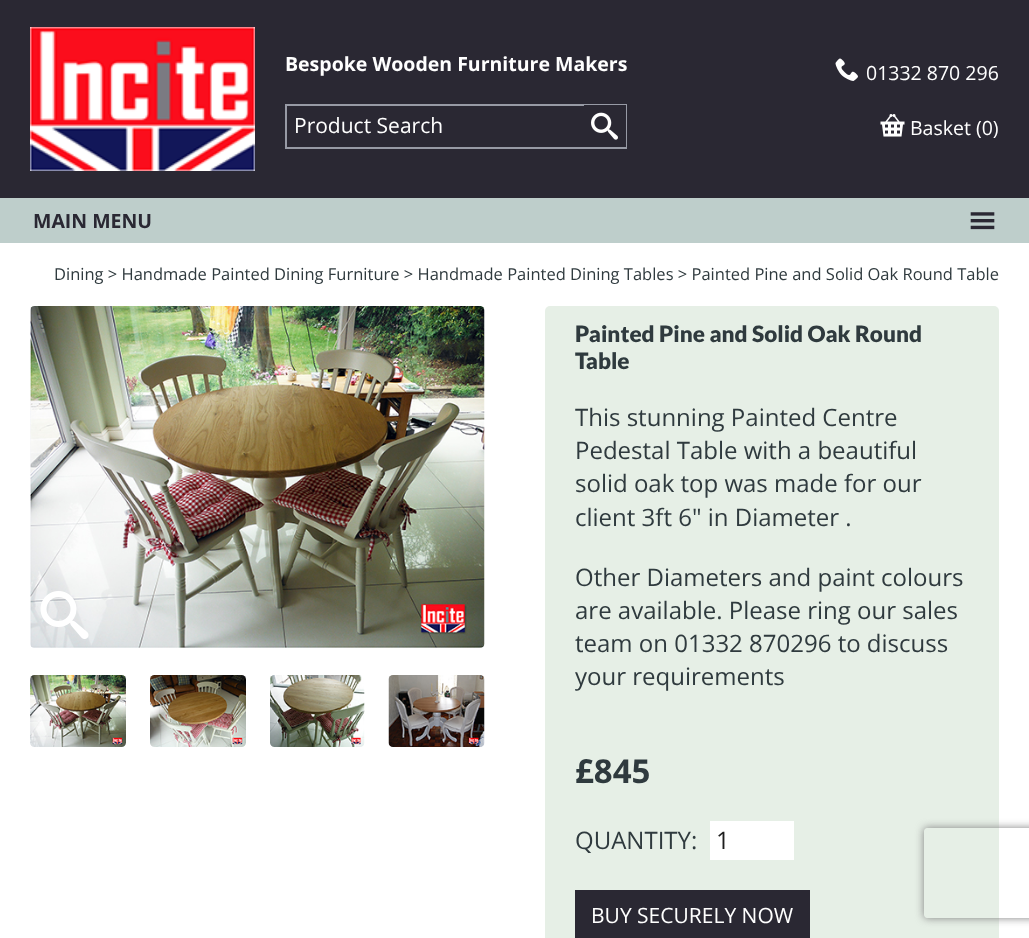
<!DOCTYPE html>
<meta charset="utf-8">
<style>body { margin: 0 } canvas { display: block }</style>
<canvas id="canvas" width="1029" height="938"></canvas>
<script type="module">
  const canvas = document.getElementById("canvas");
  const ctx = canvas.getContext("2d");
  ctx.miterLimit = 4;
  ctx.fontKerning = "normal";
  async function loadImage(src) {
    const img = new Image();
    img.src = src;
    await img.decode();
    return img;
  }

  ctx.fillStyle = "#ffffff";
  ctx.fillRect(0, 0, 1029, 938);
  ctx.fillStyle = "#2a2833";
  ctx.fillRect(0, 0, 1029, 198);
  ctx.drawImage(await loadImage("img1.png"), 30, 27, 225, 144);
  ctx.font = "bold 19.5px Open Sans";
  ctx.fillStyle = "#ffffff";
  ctx.fillText("Bespoke Wooden Furniture Makers", 285, 71);
  ctx.strokeStyle = "#979aa5";
  ctx.lineWidth = 2;
  ctx.strokeRect(286, 105, 340, 43);
  ctx.font = "21px Open Sans";
  ctx.fillText("Product Search", 294, 133);
  ctx.fillStyle = "#2a2833";
  ctx.fillRect(584, 105, 42, 42);
  ctx.drawImage(await loadImage("img2.png"), 591, 112, 27, 28);
  ctx.drawImage(await loadImage("img3.png"), 835, 58, 23, 23);
  ctx.font = "19.5px Open Sans";
  ctx.fillStyle = "#ffffff";
  ctx.fillText("01332 870 296", 866, 80);
  ctx.drawImage(await loadImage("img4.png"), 880, 114, 25, 23);
  ctx.fillText("Basket (0)", 910, 135);
  ctx.fillStyle = "#bececb";
  ctx.fillRect(0, 198, 1029, 45);
  ctx.font = "bold 19.5px Open Sans";
  ctx.fillStyle = "#2a2833";
  ctx.fillText("MAIN MENU", 33, 228);
  ctx.drawImage(await loadImage("img5.png"), 970, 212, 25, 18);
  ctx.font = "16.5px Open Sans";
  ctx.fillStyle = "#2f3a3e";
  ctx.fillText("Dining > Handmade Painted Dining Furniture > Handmade Painted Dining Tables > Painted Pine and Solid Oak Round Table", 54, 280);
  ctx.drawImage(await loadImage("img6.png"), 30, 306, 455, 342);
  ctx.drawImage(await loadImage("img7.png"), 40, 591, 49, 48);
  ctx.drawImage(await loadImage("img8.png"), 30, 675, 96, 72);
  ctx.drawImage(await loadImage("img9.png"), 150, 675, 96, 72);
  ctx.drawImage(await loadImage("img10.png"), 270, 675, 95, 72);
  ctx.drawImage(await loadImage("img11.png"), 388, 675, 97, 72);
  ctx.fillStyle = "#e6efe6";
  ctx.beginPath();
  ctx.roundRect(545, 306, 454, 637, 5);
  ctx.fill();
  ctx.font = "900 22.5px Lato";
  ctx.fillStyle = "#2f3a3e";
  ctx.fillText("Painted Pine and Solid Oak Round", 575, 342);
  ctx.fillText("Table", 575, 369);
  ctx.font = "24px Open Sans";
  ctx.fillText("This stunning Painted Centre", 575, 426);
  ctx.fillText("Pedestal Table with a beautiful", 575, 459);
  ctx.fillText("solid oak top was made for our", 575, 492);
  ctx.fillText("client 3ft 6\" in Diameter .", 575, 526);
  ctx.fillText("Other Diameters and paint colours", 575, 586);
  ctx.fillText("are available. Please ring our sales", 575, 619);
  ctx.fillText("team on 01332 870296 to discuss", 575, 652);
  ctx.fillText("your requirements", 575, 685);
  ctx.font = "bold 33px Open Sans";
  ctx.fillText("£845", 575, 783);
  ctx.font = "24px Open Sans";
  ctx.fillText("QUANTITY:", 575, 849);
  ctx.fillStyle = "#ffffff";
  ctx.beginPath();
  ctx.rect(711, 822, 82, 37);
  ctx.fill();
  ctx.strokeStyle = "#ffffff";
  ctx.stroke();
  ctx.fillStyle = "#1d1d1d";
  ctx.fillText("1", 716, 849);
  ctx.fillStyle = "#2a2833";
  ctx.beginPath();
  ctx.rect(576, 891, 233, 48);
  ctx.fill();
  ctx.strokeStyle = "#2a2833";
  ctx.stroke();
  ctx.font = "21px Open Sans";
  ctx.fillStyle = "#ffffff";
  ctx.fillText("BUY SECURELY NOW", 591, 923);
  ctx.save();
  ctx.beginPath();
  ctx.moveTo(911, 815);
  ctx.lineTo(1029, 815);
  ctx.lineTo(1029, 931);
  ctx.lineTo(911, 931);
  ctx.closePath();
  ctx.moveTo(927, 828);
  ctx.lineTo(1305, 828);
  ctx.bezierCurveTo(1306.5, 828, 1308, 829.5, 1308, 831);
  ctx.lineTo(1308, 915);
  ctx.bezierCurveTo(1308, 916.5, 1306.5, 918, 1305, 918);
  ctx.lineTo(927, 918);
  ctx.bezierCurveTo(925.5, 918, 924, 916.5, 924, 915);
  ctx.lineTo(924, 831);
  ctx.bezierCurveTo(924, 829.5, 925.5, 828, 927, 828);
  ctx.closePath();
  ctx.clip("evenodd");
  ctx.fillStyle = "#808080";
  ctx.filter = "blur(4px)";
  ctx.beginPath();
  ctx.roundRect(924, 828, 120, 90, 3);
  ctx.fill();
  ctx.filter = "none";
  ctx.restore();
</script>
